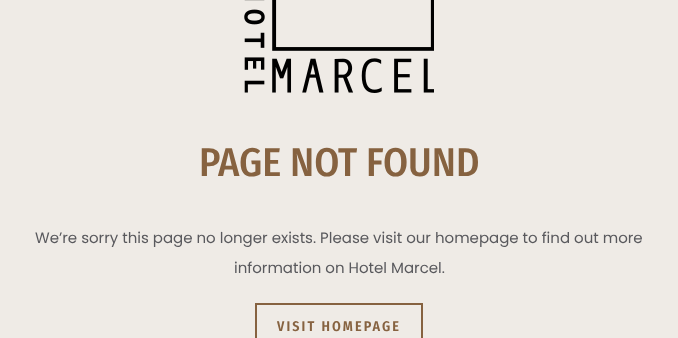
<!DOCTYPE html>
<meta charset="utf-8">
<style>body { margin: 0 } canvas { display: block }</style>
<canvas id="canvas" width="678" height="338"></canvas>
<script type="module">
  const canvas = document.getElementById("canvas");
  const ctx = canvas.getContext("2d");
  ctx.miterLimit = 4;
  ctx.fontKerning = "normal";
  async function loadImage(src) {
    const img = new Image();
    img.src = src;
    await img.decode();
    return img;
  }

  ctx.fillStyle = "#efebe6";
  ctx.fillRect(0, 0, 678, 338);
  ctx.drawImage(await loadImage("img1.png"), 244, 0, 190, 93);
  ctx.font = "500 40px Fira Sans Condensed";
  ctx.fillStyle = "#866240";
  ctx.fillText("PAGE NOT FOUND", 199, 176);
  ctx.font = "15px Poppins";
  ctx.fillStyle = "#59595d";
  ctx.fillText("We’re sorry this page no longer exists. Please visit our homepage to find out more", 35, 243);
  ctx.fillText("information on Hotel Marcel.", 234, 273);
  ctx.strokeStyle = "#866240";
  ctx.lineWidth = 2;
  ctx.strokeRect(256, 304, 166, 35);
  ctx.letterSpacing = "2.1px";
  ctx.font = "600 14px Fira Sans Condensed";
  ctx.fillStyle = "#866240";
  ctx.fillText("VISIT HOMEPAGE", 277, 331);
</script>
